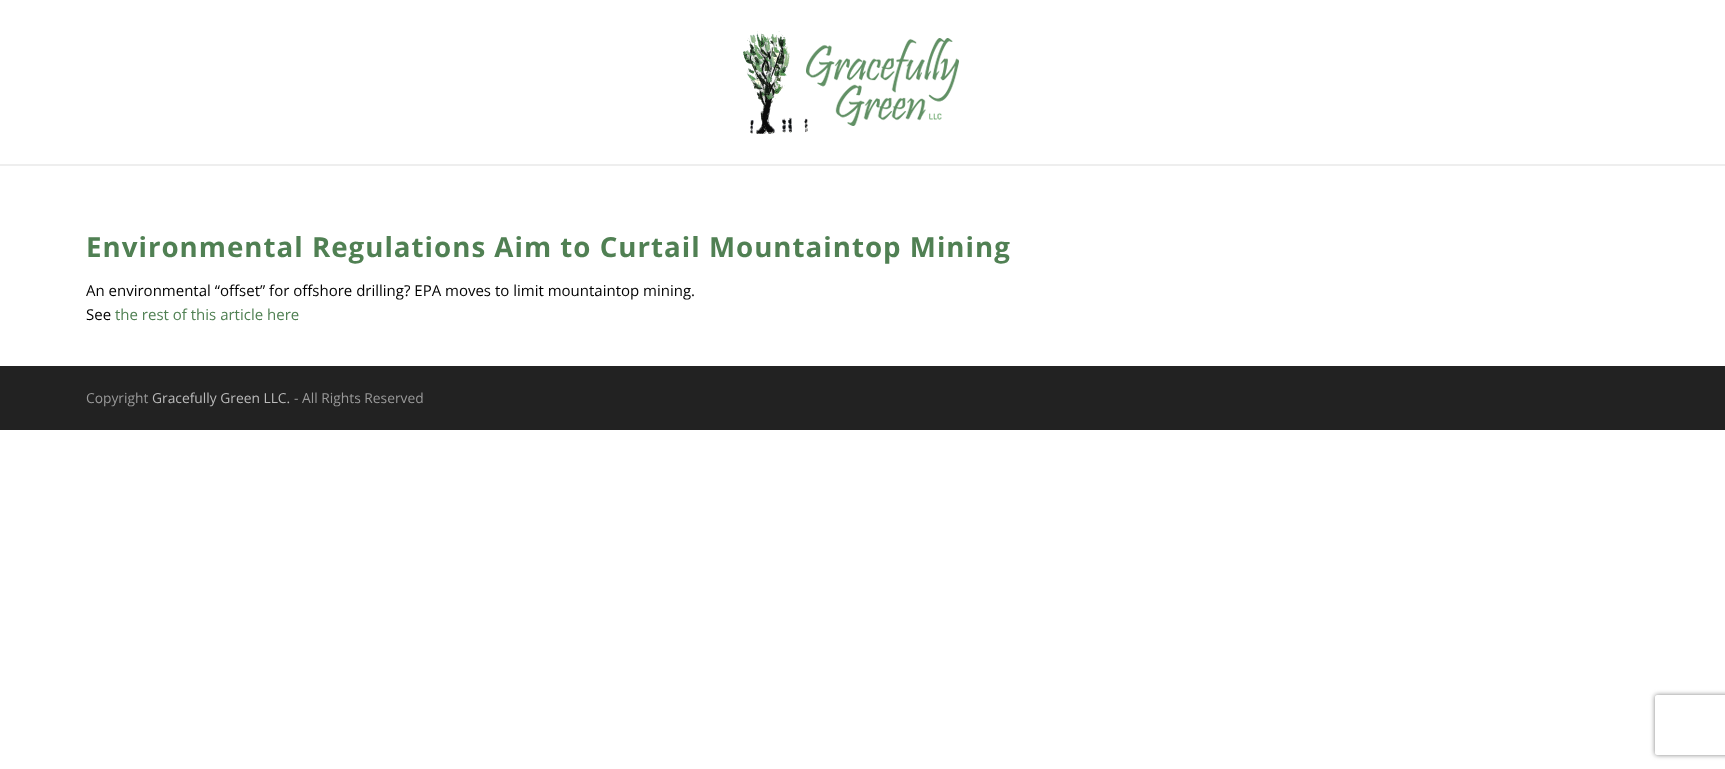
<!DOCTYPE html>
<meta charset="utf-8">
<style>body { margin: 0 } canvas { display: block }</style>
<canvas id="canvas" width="1725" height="769"></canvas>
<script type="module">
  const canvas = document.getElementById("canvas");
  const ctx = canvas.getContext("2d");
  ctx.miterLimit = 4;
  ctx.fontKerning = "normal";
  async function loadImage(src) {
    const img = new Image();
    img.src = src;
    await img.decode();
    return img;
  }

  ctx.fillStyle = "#ffffff";
  ctx.fillRect(0, 0, 1725, 769);
  ctx.drawImage(await loadImage("img1.png"), 743, 31, 216, 103);
  ctx.fillStyle = "#eeeeee";
  ctx.fillRect(0, 164, 1725, 2);
  ctx.letterSpacing = "1px";
  ctx.font = "bold 27.7px Open Sans";
  ctx.fillStyle = "#508053";
  ctx.fillText("Environmental Regulations Aim to Curtail Mountaintop Mining", 86, 257);
  ctx.letterSpacing = "0px";
  ctx.font = "15px Open Sans";
  ctx.fillStyle = "#000000";
  ctx.fillText("An environmental “offset” for offshore drilling? EPA moves to limit mountaintop mining.", 86, 296);
  ctx.fillText("See", 86, 320);
  ctx.fillStyle = "#508053";
  ctx.fillText("the rest of this article here", 115, 320);
  ctx.fillStyle = "#222222";
  ctx.fillRect(0, 366, 1725, 64);
  ctx.font = "13.8px Open Sans";
  ctx.fillStyle = "#999999";
  ctx.fillText("Copyright", 86, 403);
  ctx.fillStyle = "#bbbbbb";
  ctx.fillText("Gracefully Green LLC.", 152, 403);
  ctx.fillStyle = "#999999";
  ctx.fillText("- All Rights Reserved", 294, 403);
  ctx.save();
  ctx.beginPath();
  ctx.moveTo(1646, 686);
  ctx.lineTo(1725, 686);
  ctx.lineTo(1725, 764);
  ctx.lineTo(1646, 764);
  ctx.closePath();
  ctx.moveTo(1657, 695);
  ctx.lineTo(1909, 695);
  ctx.bezierCurveTo(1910, 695, 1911, 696, 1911, 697);
  ctx.lineTo(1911, 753);
  ctx.bezierCurveTo(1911, 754, 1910, 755, 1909, 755);
  ctx.lineTo(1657, 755);
  ctx.bezierCurveTo(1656, 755, 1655, 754, 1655, 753);
  ctx.lineTo(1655, 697);
  ctx.bezierCurveTo(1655, 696, 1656, 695, 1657, 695);
  ctx.closePath();
  ctx.clip("evenodd");
  ctx.fillStyle = "#808080";
  ctx.filter = "blur(2.5px)";
  ctx.beginPath();
  ctx.roundRect(1655, 695, 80, 60, 2);
  ctx.fill();
  ctx.filter = "none";
  ctx.restore();
</script>
